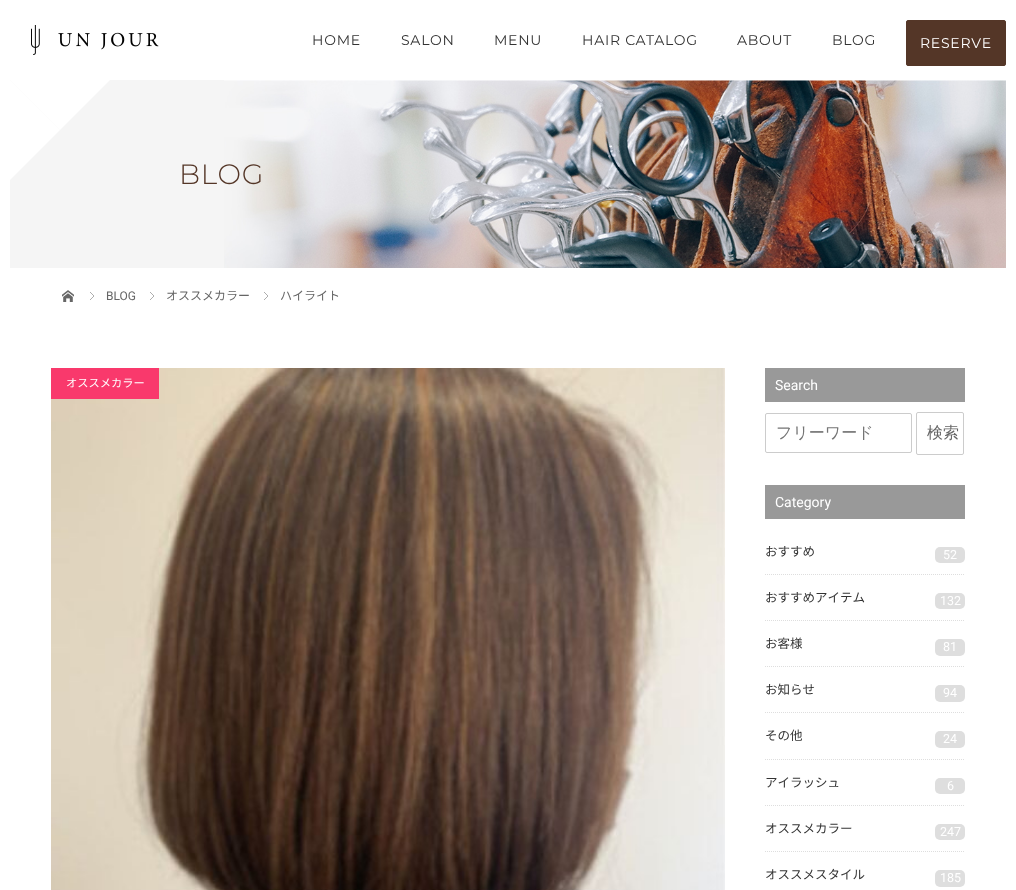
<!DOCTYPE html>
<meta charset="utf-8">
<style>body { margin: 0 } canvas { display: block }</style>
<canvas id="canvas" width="1016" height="890"></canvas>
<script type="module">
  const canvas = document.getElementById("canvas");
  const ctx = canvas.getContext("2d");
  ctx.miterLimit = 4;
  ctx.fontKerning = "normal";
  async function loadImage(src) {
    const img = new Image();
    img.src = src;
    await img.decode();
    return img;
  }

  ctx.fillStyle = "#ffffff";
  ctx.fillRect(0, 0, 1016, 890);
  ctx.drawImage(await loadImage("img1.png"), 31, 25, 128, 30);
  ctx.letterSpacing = "0.75px";
  ctx.font = "14px Montserrat";
  ctx.fillStyle = "#333333";
  ctx.fillText("HOME", 312, 45);
  ctx.fillText("SALON", 401, 45);
  ctx.fillText("MENU", 494, 45);
  ctx.fillText("HAIR CATALOG", 582, 45);
  ctx.fillText("ABOUT", 737, 45);
  ctx.fillText("BLOG", 832, 45);
  ctx.fillStyle = "#543627";
  ctx.beginPath();
  ctx.roundRect(906.5, 20.5, 99, 45, 1.5);
  ctx.fill();
  ctx.strokeStyle = "#543627";
  ctx.stroke();
  ctx.fillStyle = "#ffffff";
  ctx.fillText("RESERVE", 920, 48);
  ctx.fillStyle = "#f5f5f5";
  ctx.fillRect(10, 80, 214, 188);
  ctx.drawImage(await loadImage("img2.png"), 224, 80, 782, 188);
  ctx.fillStyle = "#ffffff";
  ctx.beginPath();
  ctx.moveTo(10, 80);
  ctx.lineTo(110, 80);
  ctx.lineTo(60, 130);
  ctx.closePath();
  ctx.fill();
  ctx.beginPath();
  ctx.moveTo(10, 180);
  ctx.lineTo(10, 80);
  ctx.lineTo(60, 130);
  ctx.closePath();
  ctx.fill();
  ctx.font = "300 28px Montserrat";
  ctx.fillStyle = "#543627";
  ctx.fillText("BLOG", 179, 184);
  ctx.drawImage(await loadImage("img3.png"), 62, 290, 12, 12);
  ctx.beginPath();
  ctx.moveTo(90, 292);
  ctx.lineTo(94, 296);
  ctx.lineTo(90, 300);
  ctx.strokeStyle = "#999999";
  ctx.lineWidth = 0.8;
  ctx.stroke();
  ctx.letterSpacing = "0px";
  ctx.font = "12px Roboto";
  ctx.fillStyle = "#666666";
  ctx.fillText("BLOG", 106, 300);
  ctx.beginPath();
  ctx.moveTo(150, 292);
  ctx.lineTo(154, 296);
  ctx.lineTo(150, 300);
  ctx.stroke();
  ctx.font = "12px Noto Sans JP";
  ctx.fillText("オススメカラー", 166, 300);
  ctx.beginPath();
  ctx.moveTo(264, 292);
  ctx.lineTo(268, 296);
  ctx.lineTo(264, 300);
  ctx.stroke();
  ctx.fillText("ハイライト", 280, 300);
  ctx.drawImage(await loadImage("img4.png"), 51, 368, 674, 522);
  ctx.fillStyle = "#f9396c";
  ctx.fillRect(51, 368, 108, 31);
  ctx.font = "11.25px Noto Sans JP";
  ctx.fillStyle = "#ffffff";
  ctx.fillText("オススメカラー", 66, 387);
  ctx.fillStyle = "#999999";
  ctx.fillRect(765, 368, 200, 34);
  ctx.font = "14px Roboto";
  ctx.fillStyle = "#ffffff";
  ctx.fillText("Search", 775, 390);
  ctx.beginPath();
  ctx.roundRect(765.5, 413.5, 146, 39, 1.5);
  ctx.strokeStyle = "#cccccc";
  ctx.lineWidth = 1;
  ctx.stroke();
  ctx.font = "500 16px WenQuanYi Zen Hei";
  ctx.fillStyle = "#757575";
  ctx.fillText("フリーワード", 776, 438);
  ctx.beginPath();
  ctx.roundRect(916.5, 412.5, 47, 42, 1.5);
  ctx.stroke();
  ctx.fillStyle = "#666666";
  ctx.fillText("検索", 927, 438);
  ctx.fillStyle = "#999999";
  ctx.fillRect(765, 485, 200, 34);
  ctx.font = "14px Roboto";
  ctx.fillStyle = "#ffffff";
  ctx.fillText("Category", 775, 507);
  ctx.beginPath();
  ctx.moveTo(765, 574.5);
  ctx.lineTo(965, 574.5);
  ctx.strokeStyle = "#dedede";
  ctx.setLineDash([1, 1]);
  ctx.stroke();
  ctx.font = "12.5px Noto Sans JP";
  ctx.fillStyle = "#333333";
  ctx.fillText("おすすめ", 765, 556);
  ctx.fillStyle = "#dedede";
  ctx.beginPath();
  ctx.roundRect(935, 547, 30, 16, 5);
  ctx.fill();
  ctx.font = "12.5px Roboto";
  ctx.fillStyle = "#ffffff";
  ctx.fillText("52", 943, 559);
  ctx.beginPath();
  ctx.moveTo(765, 620.5);
  ctx.lineTo(965, 620.5);
  ctx.stroke();
  ctx.font = "12.5px Noto Sans JP";
  ctx.fillStyle = "#333333";
  ctx.fillText("おすすめアイテム", 765, 602);
  ctx.fillStyle = "#dedede";
  ctx.beginPath();
  ctx.roundRect(935, 593, 30, 16, 5);
  ctx.fill();
  ctx.font = "12.5px Roboto";
  ctx.fillStyle = "#ffffff";
  ctx.fillText("132", 940, 605);
  ctx.beginPath();
  ctx.moveTo(765, 666.5);
  ctx.lineTo(965, 666.5);
  ctx.stroke();
  ctx.font = "12.5px Noto Sans JP";
  ctx.fillStyle = "#333333";
  ctx.fillText("お客様", 765, 648);
  ctx.fillStyle = "#dedede";
  ctx.beginPath();
  ctx.roundRect(935, 639, 30, 17, 5);
  ctx.fill();
  ctx.font = "12.5px Roboto";
  ctx.fillStyle = "#ffffff";
  ctx.fillText("81", 943, 651);
  ctx.beginPath();
  ctx.moveTo(765, 712.5);
  ctx.lineTo(965, 712.5);
  ctx.stroke();
  ctx.font = "12.5px Noto Sans JP";
  ctx.fillStyle = "#333333";
  ctx.fillText("お知らせ", 765, 694);
  ctx.fillStyle = "#dedede";
  ctx.beginPath();
  ctx.roundRect(935, 685, 30, 17, 5);
  ctx.fill();
  ctx.font = "12.5px Roboto";
  ctx.fillStyle = "#ffffff";
  ctx.fillText("94", 943, 697);
  ctx.beginPath();
  ctx.moveTo(765, 759.5);
  ctx.lineTo(965, 759.5);
  ctx.stroke();
  ctx.font = "12.5px Noto Sans JP";
  ctx.fillStyle = "#333333";
  ctx.fillText("その他", 765, 740);
  ctx.fillStyle = "#dedede";
  ctx.beginPath();
  ctx.roundRect(935, 731, 30, 17, 5);
  ctx.fill();
  ctx.font = "12.5px Roboto";
  ctx.fillStyle = "#ffffff";
  ctx.fillText("24", 943, 743);
  ctx.beginPath();
  ctx.moveTo(765, 805.5);
  ctx.lineTo(965, 805.5);
  ctx.stroke();
  ctx.font = "12.5px Noto Sans JP";
  ctx.fillStyle = "#333333";
  ctx.fillText("アイラッシュ", 765, 787);
  ctx.fillStyle = "#dedede";
  ctx.beginPath();
  ctx.roundRect(935, 778, 30, 16, 5);
  ctx.fill();
  ctx.font = "12.5px Roboto";
  ctx.fillStyle = "#ffffff";
  ctx.fillText("6", 947, 790);
  ctx.beginPath();
  ctx.moveTo(765, 851.5);
  ctx.lineTo(965, 851.5);
  ctx.stroke();
  ctx.font = "12.5px Noto Sans JP";
  ctx.fillStyle = "#333333";
  ctx.fillText("オススメカラー", 765, 833);
  ctx.fillStyle = "#dedede";
  ctx.beginPath();
  ctx.roundRect(935, 824, 30, 16, 5);
  ctx.fill();
  ctx.font = "12.5px Roboto";
  ctx.fillStyle = "#ffffff";
  ctx.fillText("247", 940, 836);
  ctx.font = "12.5px Noto Sans JP";
  ctx.fillStyle = "#333333";
  ctx.fillText("オススメスタイル", 765, 879);
  ctx.fillStyle = "#dedede";
  ctx.beginPath();
  ctx.roundRect(935, 870, 30, 17, 5);
  ctx.fill();
  ctx.font = "12.5px Roboto";
  ctx.fillStyle = "#ffffff";
  ctx.fillText("185", 940, 882);
</script>
